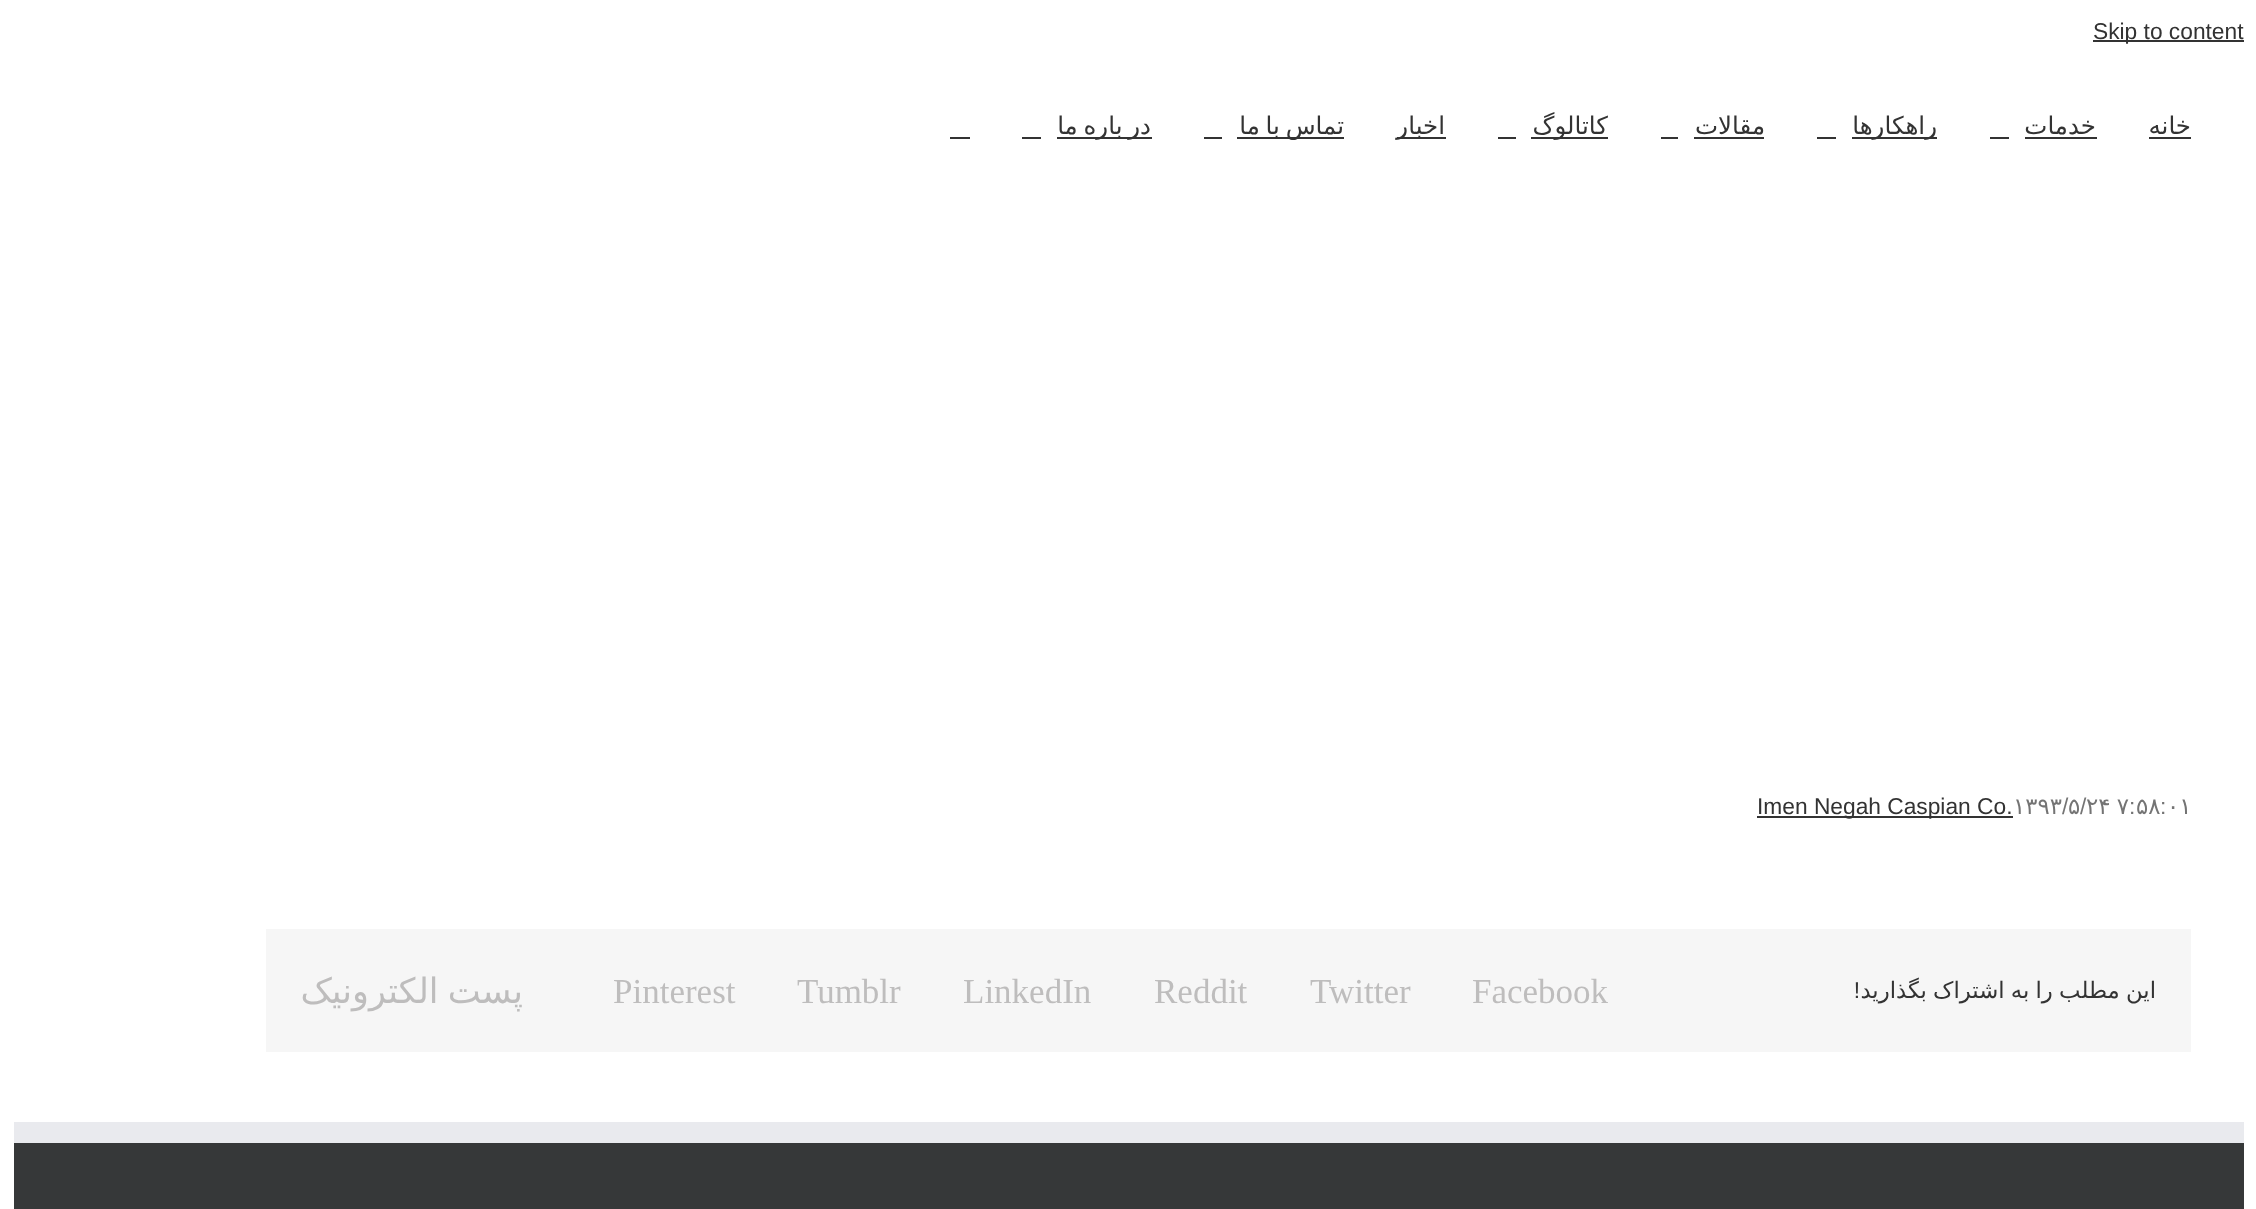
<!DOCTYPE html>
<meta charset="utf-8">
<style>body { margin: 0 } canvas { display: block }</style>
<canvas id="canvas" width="2256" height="1209"></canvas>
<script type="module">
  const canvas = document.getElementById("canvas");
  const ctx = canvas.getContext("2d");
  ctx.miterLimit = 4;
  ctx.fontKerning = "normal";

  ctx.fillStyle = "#ffffff";
  ctx.fillRect(0, 0, 2256, 1209);
  ctx.fillStyle = "#333333";
  ctx.fillRect(2093, 40, 151, 2);
  ctx.font = "22.75px Liberation Sans";
  ctx.fillText("Skip to content", 2093, 39);
  ctx.fillRect(1022, 137, 19, 2);
  ctx.fillRect(1057, 137, 95, 2);
  ctx.wordSpacing = "-2px";
  ctx.direction = "rtl";
  ctx.font = "24.5px DejaVu Sans";
  ctx.fillText("در باره ما", 1151, 134);
  ctx.fillRect(1204, 137, 18, 2);
  ctx.fillRect(1237, 137, 107, 2);
  ctx.fillText("تماس با ما", 1344, 134);
  ctx.fillRect(1397, 137, 49, 2);
  ctx.wordSpacing = "0px";
  ctx.fillText("اخبار", 1445, 134);
  ctx.fillRect(1498, 137, 18, 2);
  ctx.fillRect(1531, 137, 77, 2);
  ctx.fillText("کاتالوگ", 1608, 134);
  ctx.fillText("مقالات", 1765, 134);
  ctx.fillRect(1694, 137, 70, 2);
  ctx.fillRect(1661, 137, 17, 2);
  ctx.fillRect(1817, 137, 19, 2);
  ctx.fillRect(1852, 137, 85, 2);
  ctx.fillText("راهکارها", 1937, 134);
  ctx.fillText("خدمات", 2096, 134);
  ctx.fillRect(2025, 137, 72, 2);
  ctx.fillRect(1990, 137, 19, 2);
  ctx.fillText("خانه", 2191, 134);
  ctx.fillRect(2149, 137, 42, 2);
  ctx.fillRect(950, 137, 20, 2);
  ctx.fillRect(1757, 816, 256, 2);
  ctx.direction = "ltr";
  ctx.font = "22.75px Liberation Sans";
  ctx.fillText("Imen Negah Caspian Co.", 1757, 814);
  ctx.font = "22.75px DejaVu Sans";
  ctx.fillStyle = "#747474";
  ctx.fillText("۱۳۹۳", 2013, 814);
  ctx.font = "22.75px Liberation Sans";
  ctx.fillText("/", 2062, 814);
  ctx.font = "22.75px DejaVu Sans";
  ctx.fillText("۵", 2068, 814);
  ctx.font = "22.75px Liberation Sans";
  ctx.fillText("/", 2080, 814);
  ctx.wordSpacing = "-1px";
  ctx.font = "22.75px DejaVu Sans";
  ctx.fillText("۲۴ ۷", 2086, 814);
  ctx.wordSpacing = "0px";
  ctx.font = "22.75px Liberation Sans";
  ctx.fillText(":", 2129, 814);
  ctx.font = "22.75px DejaVu Sans";
  ctx.fillText("۵۸", 2136, 814);
  ctx.font = "22.75px Liberation Sans";
  ctx.fillText(":", 2160, 814);
  ctx.font = "22.75px DejaVu Sans";
  ctx.fillText("۰۱", 2167, 814);
  ctx.fillStyle = "#f6f6f6";
  ctx.fillRect(266, 929, 1925, 123);
  ctx.wordSpacing = "-2px";
  ctx.direction = "rtl";
  ctx.font = "35px DejaVu Sans";
  ctx.fillStyle = "#bebdbd";
  ctx.fillText("پست الکترونیک", 523, 1003);
  ctx.wordSpacing = "0px";
  ctx.direction = "ltr";
  ctx.font = "35px Liberation Serif";
  ctx.fillText("Pinterest", 613, 1003);
  ctx.fillText("Tumblr", 797, 1003);
  ctx.fillText("LinkedIn", 963, 1003);
  ctx.fillText("Reddit", 1154, 1003);
  ctx.fillText("Twitter", 1310, 1003);
  ctx.fillText("Facebook", 1472, 1003);
  ctx.direction = "rtl";
  ctx.font = "22.75px Liberation Sans";
  ctx.fillStyle = "#333333";
  ctx.fillText("!", 1860, 998);
  ctx.wordSpacing = "-1px";
  ctx.font = "22.75px DejaVu Sans";
  ctx.fillText("این مطلب را به اشتراک بگذارید", 2156, 998);
  ctx.fillStyle = "#363839";
  ctx.fillRect(14, 1143, 2230, 66);
  ctx.fillStyle = "#e9eaee";
  ctx.fillRect(14, 1122, 2230, 21);
</script>
